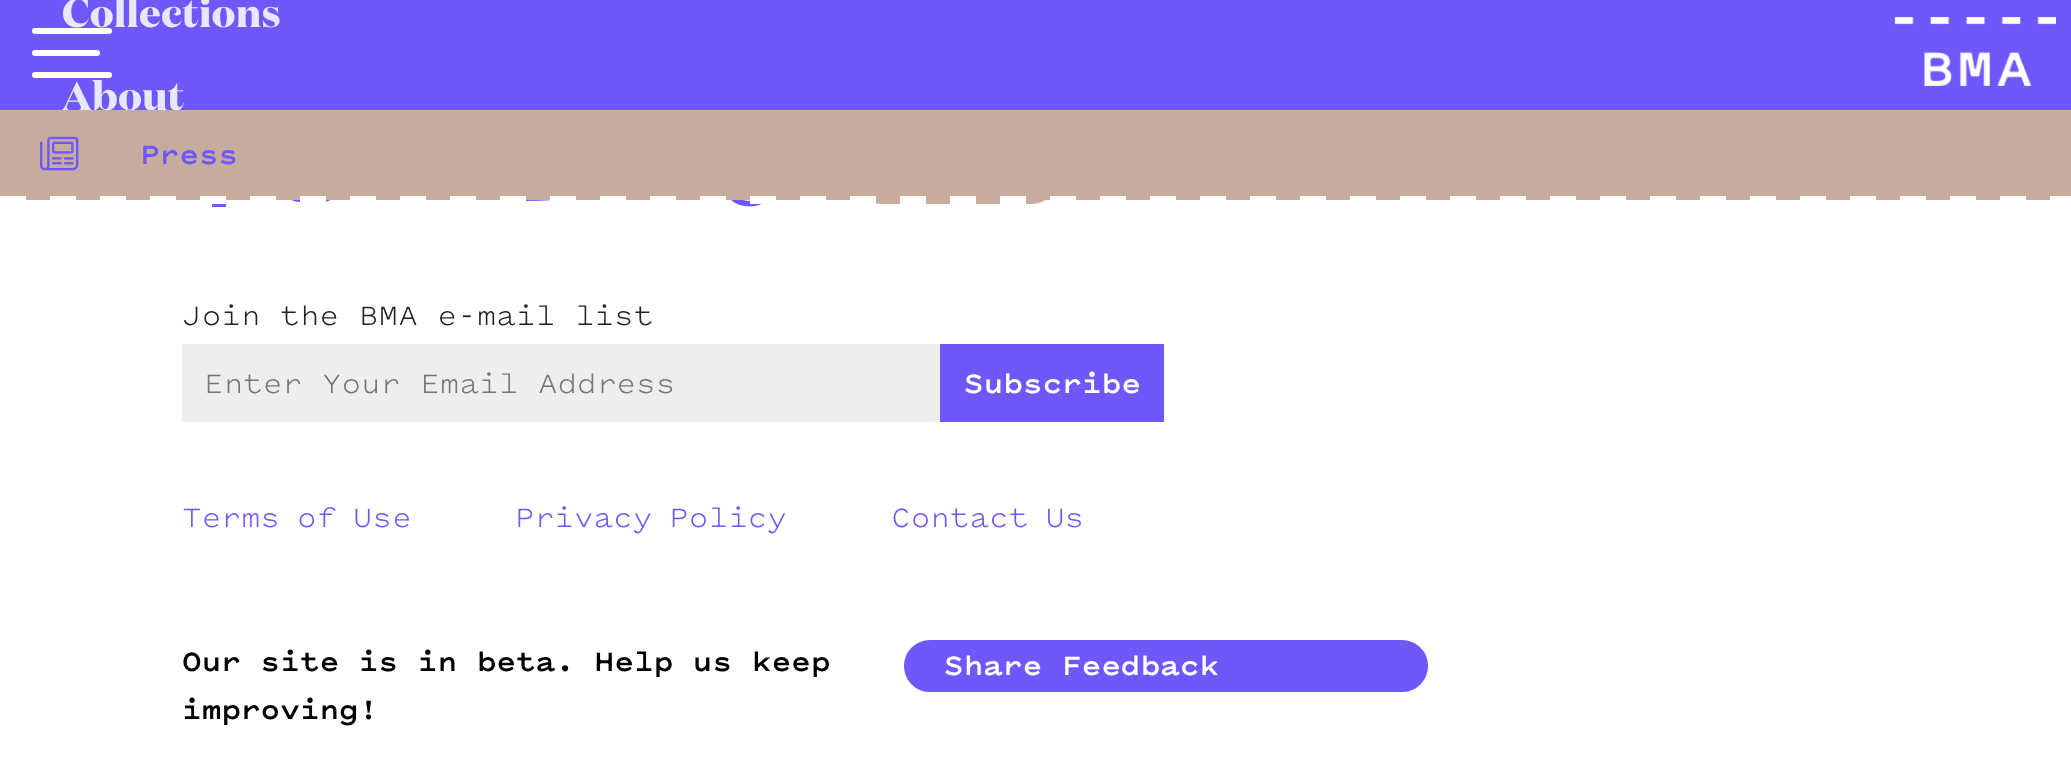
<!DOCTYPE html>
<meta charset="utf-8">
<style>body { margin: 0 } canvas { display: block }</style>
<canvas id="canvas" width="2071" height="768"></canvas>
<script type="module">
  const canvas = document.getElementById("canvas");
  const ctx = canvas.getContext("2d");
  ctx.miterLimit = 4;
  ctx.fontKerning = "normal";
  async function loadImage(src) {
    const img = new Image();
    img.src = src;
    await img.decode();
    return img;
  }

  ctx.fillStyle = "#ffffff";
  ctx.fillRect(0, 0, 2071, 768);
  ctx.fillStyle = "#6d59fa";
  ctx.fillRect(0, 0, 2071, 110);
  ctx.letterSpacing = "0.4px";
  ctx.font = "bold 40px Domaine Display";
  ctx.fillStyle = "#e9e6fe";
  ctx.fillText("Collections", 62, 27);
  ctx.save();
  ctx.beginPath();
  ctx.rect(0, 0, 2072, 110);
  ctx.clip();
  ctx.fillText("About", 62, 110);
  ctx.restore();
  ctx.drawImage(await loadImage("img1.png"), 1894, 17, 162, 69);
  ctx.fillStyle = "#ffffff";
  ctx.beginPath();
  ctx.roundRect(32, 28, 80, 6, 3);
  ctx.fill();
  ctx.beginPath();
  ctx.roundRect(32, 50, 68, 6, 3);
  ctx.fill();
  ctx.beginPath();
  ctx.roundRect(32, 72, 80, 6, 3);
  ctx.fill();
  ctx.fillStyle = "#6d59fa";
  ctx.beginPath();
  ctx.moveTo(236, 164);
  ctx.lineTo(226, 164);
  ctx.bezierCurveTo(226, 152, 225, 154, 236, 154);
  ctx.lineTo(236, 143);
  ctx.bezierCurveTo(226, 143, 214, 141, 213, 154);
  ctx.lineTo(212, 164);
  ctx.lineTo(206, 164);
  ctx.lineTo(206, 175);
  ctx.lineTo(212, 175);
  ctx.lineTo(212, 207);
  ctx.lineTo(226, 207);
  ctx.lineTo(226, 175);
  ctx.lineTo(235, 175);
  ctx.closePath();
  ctx.fill();
  ctx.fillStyle = "#c8ab9f";
  ctx.beginPath();
  ctx.roundRect(849, 139, 214, 66, 33);
  ctx.fill();
  ctx.strokeStyle = "#ffffff";
  ctx.lineWidth = 2;
  ctx.stroke();
  ctx.fillRect(0, 110, 2071, 90);
  ctx.drawImage(await loadImage("img2.png"), 40, 136, 39, 35);
  ctx.letterSpacing = "0px";
  ctx.font = "bold 32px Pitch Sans";
  ctx.fillStyle = "#6d59fa";
  ctx.fillText("Press", 140, 164);
  ctx.drawImage(await loadImage("img4.png"), 291, 200, 40, 2);
  ctx.drawImage(await loadImage("img5.png"), 526, 200, 24, 1);
  ctx.drawImage(await loadImage("img6.png"), 731, 200, 31, 7);
  ctx.drawImage(await loadImage("img3.png"), 0, 196, 2071, 8);
  ctx.font = "32px Pitch Sans";
  ctx.fillStyle = "#212529";
  ctx.fillText("Join the BMA e-mail list", 182, 325);
  ctx.fillStyle = "#eeeeee";
  ctx.fillRect(182, 344, 758, 78);
  ctx.fillStyle = "#757575";
  ctx.fillText("Enter Your Email Address", 204, 393);
  ctx.fillStyle = "#6d59fa";
  ctx.fillRect(940, 344, 224, 78);
  ctx.font = "bold 32px Pitch Sans";
  ctx.fillStyle = "#ffffff";
  ctx.fillText("Subscribe", 964, 393);
  ctx.wordSpacing = "-3px";
  ctx.font = "32px Pitch Sans";
  ctx.fillStyle = "#6d59fa";
  ctx.fillText("Terms of Use", 182, 527);
  ctx.fillText("Privacy Policy", 515, 527);
  ctx.fillText("Contact Us", 891, 527);
  ctx.wordSpacing = "0px";
  ctx.font = "bold 32px Pitch Sans";
  ctx.fillStyle = "#000000";
  ctx.fillText("Our site is in beta. Help us keep", 182, 671);
  ctx.fillText("improving!", 182, 719);
  ctx.fillStyle = "#6d59fa";
  ctx.beginPath();
  ctx.roundRect(903, 639, 526, 54, 27);
  ctx.fill();
  ctx.stroke();
  ctx.fillStyle = "#ffffff";
  ctx.fillText("Share Feedback", 944, 675);
</script>
